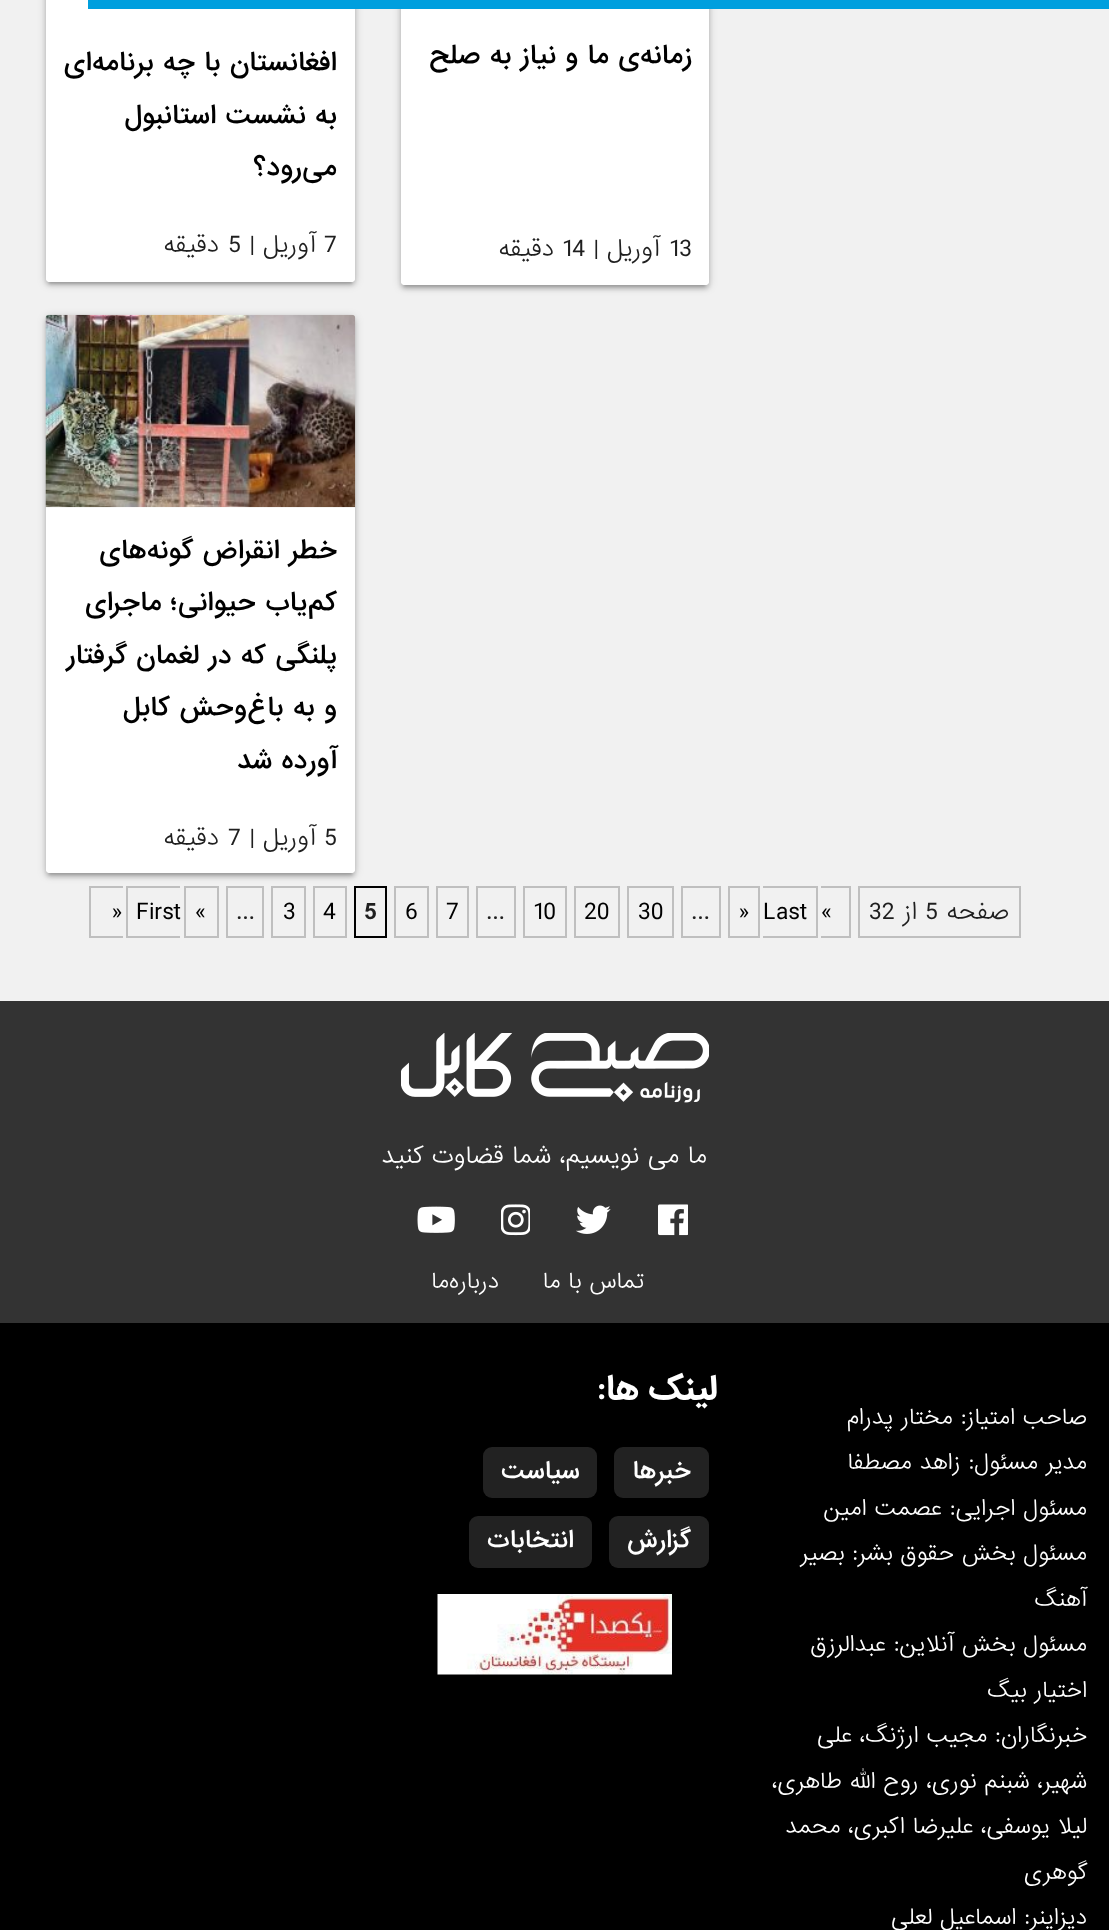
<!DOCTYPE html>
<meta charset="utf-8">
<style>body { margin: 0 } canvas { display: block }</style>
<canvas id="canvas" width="1109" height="1930"></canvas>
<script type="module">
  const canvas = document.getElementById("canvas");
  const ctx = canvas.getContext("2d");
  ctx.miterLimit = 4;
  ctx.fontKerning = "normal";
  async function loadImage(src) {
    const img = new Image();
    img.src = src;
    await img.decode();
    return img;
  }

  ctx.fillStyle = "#f1f1f1";
  ctx.fillRect(0, 0, 1109, 1930);
  ctx.fillStyle = "rgba(0, 0, 0, 0.2)";
  ctx.filter = "blur(4.5px)";
  ctx.beginPath();
  ctx.roundRect(401, -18, 308, 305, 4);
  ctx.fill();
  ctx.filter = "none";
  ctx.fillStyle = "rgba(0, 0, 0, 0.12)";
  ctx.filter = "blur(1px)";
  ctx.beginPath();
  ctx.rect(404, -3, 301, 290);
  ctx.fill();
  ctx.filter = "none";
  ctx.fillStyle = "rgba(0, 0, 0, 0.14)";
  ctx.filter = "blur(2px)";
  ctx.beginPath();
  ctx.roundRect(401, -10, 308, 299, 4);
  ctx.fill();
  ctx.filter = "none";
  ctx.fillStyle = "#ffffff";
  ctx.beginPath();
  ctx.roundRect(401, -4, 308, 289, 4);
  ctx.fill();
  ctx.fillStyle = "rgba(0, 0, 0, 0.2)";
  ctx.filter = "blur(4.5px)";
  ctx.beginPath();
  ctx.roundRect(46, -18, 309, 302, 4);
  ctx.fill();
  ctx.filter = "none";
  ctx.fillStyle = "rgba(0, 0, 0, 0.12)";
  ctx.filter = "blur(1px)";
  ctx.beginPath();
  ctx.rect(49, -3, 303, 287);
  ctx.fill();
  ctx.filter = "none";
  ctx.fillStyle = "rgba(0, 0, 0, 0.14)";
  ctx.filter = "blur(2px)";
  ctx.beginPath();
  ctx.roundRect(46, -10, 309, 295, 4);
  ctx.fill();
  ctx.filter = "none";
  ctx.fillStyle = "#ffffff";
  ctx.beginPath();
  ctx.roundRect(46, -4, 309, 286, 4);
  ctx.fill();
  ctx.fillStyle = "#009fde";
  ctx.fillRect(88, 0, 1021, 9);
  ctx.direction = "rtl";
  ctx.font = "500 24.5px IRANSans";
  ctx.fillStyle = "#000000";
  ctx.fillText("زمانه‌ی ما و نیاز به صلح", 692, 63);
  ctx.fillStyle = "#ffffff";
  ctx.beginPath();
  ctx.roundRect(401, 215, 308, 70, [0, 0, 4, 4]);
  ctx.fill();
  ctx.direction = "ltr";
  ctx.font = "300 22.75px IRANSans";
  ctx.fillStyle = "#1f1f1f";
  ctx.fillText("13", 669, 256);
  ctx.direction = "rtl";
  ctx.fillText("آوریل |", 660, 256);
  ctx.direction = "ltr";
  ctx.fillText("14", 562, 256);
  ctx.direction = "rtl";
  ctx.fillText("دقیقه", 554, 256);
  ctx.font = "500 24.5px IRANSans";
  ctx.fillStyle = "#000000";
  ctx.fillText("افغانستان با چه برنامه‌ای", 337, 70);
  ctx.fillText("به نشست استانبول", 337, 123);
  ctx.fillText("می‌رود؟", 337, 175);
  ctx.fillStyle = "#ffffff";
  ctx.beginPath();
  ctx.roundRect(46, 212, 309, 70, [0, 0, 4, 4]);
  ctx.fill();
  ctx.direction = "ltr";
  ctx.font = "300 22.75px IRANSans";
  ctx.fillStyle = "#1f1f1f";
  ctx.fillText("7", 324, 252);
  ctx.direction = "rtl";
  ctx.fillText("آوریل |", 316, 252);
  ctx.direction = "ltr";
  ctx.fillText("5", 228, 252);
  ctx.direction = "rtl";
  ctx.fillText("دقیقه", 219, 252);
  ctx.strokeStyle = "#000000";
  ctx.lineWidth = 2;
  ctx.strokeRect(355, 887, 31, 50);
  ctx.strokeStyle = "#bfbfbf";
  ctx.strokeRect(314, 887, 32, 50);
  ctx.strokeRect(272, 887, 33, 50);
  ctx.strokeRect(227, 887, 36, 50);
  ctx.strokeRect(185, 887, 33, 50);
  ctx.fillStyle = "#bfbfbf";
  ctx.fillRect(126, 886, 54, 2);
  ctx.fillRect(126, 936, 54, 2);
  ctx.fillRect(126, 886, 2, 52);
  ctx.fillRect(89, 886, 34, 2);
  ctx.fillRect(89, 936, 34, 2);
  ctx.fillRect(89, 886, 2, 52);
  ctx.fillStyle = "rgba(0, 0, 0, 0.2)";
  ctx.filter = "blur(4.5px)";
  ctx.beginPath();
  ctx.roundRect(46, 317, 309, 558, 4);
  ctx.fill();
  ctx.filter = "none";
  ctx.fillStyle = "rgba(0, 0, 0, 0.12)";
  ctx.filter = "blur(1px)";
  ctx.beginPath();
  ctx.rect(49, 324, 303, 551);
  ctx.fill();
  ctx.filter = "none";
  ctx.fillStyle = "rgba(0, 0, 0, 0.14)";
  ctx.filter = "blur(2px)";
  ctx.beginPath();
  ctx.roundRect(46, 319, 309, 558, 4);
  ctx.fill();
  ctx.filter = "none";
  ctx.fillStyle = "#ffffff";
  ctx.beginPath();
  ctx.roundRect(46, 315, 309, 558, 4);
  ctx.fill();
  ctx.drawImage(await loadImage("img1.png"), 45, 314, 311, 194);
  ctx.font = "500 24.5px IRANSans";
  ctx.fillStyle = "#000000";
  ctx.fillText("خطر انقراض گونه‌های", 337, 558);
  ctx.fillText("کم‌یاب حیوانی؛ ماجرای", 337, 610);
  ctx.fillText("پلنگی که در لغمان گرفتار", 337, 663);
  ctx.fillText("و به باغ‌وحش کابل", 337, 715);
  ctx.fillText("آورده شد", 337, 768);
  ctx.fillStyle = "#ffffff";
  ctx.beginPath();
  ctx.roundRect(46, 805, 309, 68, [0, 0, 4, 4]);
  ctx.fill();
  ctx.direction = "ltr";
  ctx.font = "300 22.75px IRANSans";
  ctx.fillStyle = "#1f1f1f";
  ctx.fillText("5", 324, 845);
  ctx.direction = "rtl";
  ctx.fillText("آوریل |", 316, 845);
  ctx.direction = "ltr";
  ctx.fillText("7", 228, 845);
  ctx.direction = "rtl";
  ctx.fillText("دقیقه", 219, 845);
  ctx.fillText("صفحه", 1009, 919);
  ctx.fillStyle = "#bfbfbf";
  ctx.fillRect(858, 886, 162, 2);
  ctx.fillRect(1019, 886, 2, 52);
  ctx.direction = "ltr";
  ctx.fillStyle = "#1f1f1f";
  ctx.fillText("5", 925, 919);
  ctx.fillStyle = "#bfbfbf";
  ctx.fillRect(938, 936, 82, 2);
  ctx.direction = "rtl";
  ctx.fillStyle = "#1f1f1f";
  ctx.fillText("از", 917, 919);
  ctx.fillStyle = "#bfbfbf";
  ctx.fillRect(858, 936, 80, 2);
  ctx.direction = "ltr";
  ctx.fillStyle = "#1f1f1f";
  ctx.fillText("32", 869, 919);
  ctx.fillStyle = "#bfbfbf";
  ctx.fillRect(858, 886, 2, 52);
  ctx.fillStyle = "#000000";
  ctx.fillText("«", 821, 919);
  ctx.fillStyle = "#bfbfbf";
  ctx.fillRect(821, 886, 30, 2);
  ctx.fillRect(849, 886, 2, 52);
  ctx.fillRect(821, 936, 30, 2);
  ctx.fillStyle = "#000000";
  ctx.fillText("Last", 763, 919);
  ctx.fillStyle = "#bfbfbf";
  ctx.fillRect(763, 886, 54, 2);
  ctx.fillRect(816, 886, 2, 52);
  ctx.fillRect(763, 936, 54, 2);
  ctx.strokeRect(729, 887, 30, 50);
  ctx.fillStyle = "#000000";
  ctx.fillText("»", 738, 919);
  ctx.strokeRect(682, 887, 38, 50);
  ctx.fillStyle = "#1f1f1f";
  ctx.fillText("...", 691, 919);
  ctx.strokeRect(628, 887, 45, 50);
  ctx.fillStyle = "#000000";
  ctx.fillText("30", 638, 919);
  ctx.strokeRect(575, 887, 44, 50);
  ctx.fillText("20", 584, 919);
  ctx.strokeRect(524, 887, 42, 50);
  ctx.fillText("10", 533, 919);
  ctx.strokeRect(477, 887, 38, 50);
  ctx.fillStyle = "#1f1f1f";
  ctx.fillText("...", 486, 919);
  ctx.strokeRect(437, 887, 31, 50);
  ctx.fillStyle = "#000000";
  ctx.fillText("7", 446, 919);
  ctx.strokeRect(395, 887, 33, 50);
  ctx.fillText("6", 405, 919);
  ctx.font = "bold 22.75px IRANSans";
  ctx.fillStyle = "#1f1f1f";
  ctx.fillText("5", 364, 919);
  ctx.font = "300 22.75px IRANSans";
  ctx.fillStyle = "#000000";
  ctx.fillText("4", 323, 919);
  ctx.fillText("3", 283, 919);
  ctx.fillStyle = "#1f1f1f";
  ctx.fillText("...", 236, 919);
  ctx.fillStyle = "#000000";
  ctx.fillText("«", 195, 919);
  ctx.fillText("First", 136, 919);
  ctx.fillText("»", 111, 919);
  ctx.fillRect(0, 1323, 1109, 607);
  ctx.fillStyle = "#333333";
  ctx.fillRect(0, 1001, 1109, 322);
  ctx.drawImage(await loadImage("img2.png"), 401, 1033, 308, 70);
  ctx.direction = "rtl";
  ctx.fillStyle = "#ffffff";
  ctx.fillText("ما می نویسیم، شما قضاوت کنید", 707, 1163);
  ctx.drawImage(await loadImage("img3.png"), 658, 1204, 30, 32);
  ctx.drawImage(await loadImage("img4.png"), 576, 1205, 35, 29);
  ctx.drawImage(await loadImage("img5.png"), 501, 1204, 29, 32);
  ctx.drawImage(await loadImage("img6.png"), 417, 1206, 38, 27);
  ctx.font = "300 21px IRANSans";
  ctx.fillText("تماس با ما", 644, 1288);
  ctx.fillText("درباره‌ما", 499, 1288);
  ctx.fillText("صاحب امتیاز: مختار پدرام", 1087, 1424);
  ctx.fillText("مدیر مسئول: زاهد مصطفا", 1087, 1469);
  ctx.fillText("مسئول اجرایی: عصمت امین", 1087, 1515);
  ctx.fillText("مسئول بخش حقوق بشر: بصیر", 1087, 1560);
  ctx.fillText("آهنگ", 1087, 1606);
  ctx.fillText("مسئول بخش آنلاین: عبدالرزق", 1087, 1651);
  ctx.fillText("اختیار بیگ", 1087, 1697);
  ctx.fillText("خبرنگاران: مجیب ارژنگ، علی", 1087, 1742);
  ctx.fillText("شهیر، شبنم نوری، روح الله طاهری،", 1087, 1788);
  ctx.fillText("لیلا یوسفی، علیرضا اکبری، محمد", 1087, 1833);
  ctx.fillText("گوهری", 1087, 1879);
  ctx.fillText("دیزاینر: اسماعیل لعلی", 1087, 1924);
  ctx.font = "bold 31.5px IRANSans";
  ctx.fillText("لینک ها:", 717, 1399);
  ctx.fillStyle = "#222222";
  ctx.beginPath();
  ctx.roundRect(614, 1447, 95, 51, 9);
  ctx.fill();
  ctx.font = "500 22.75px IRANSans";
  ctx.fillStyle = "#ffffff";
  ctx.fillText("خبرها", 691, 1478);
  ctx.fillStyle = "#222222";
  ctx.beginPath();
  ctx.roundRect(483, 1447, 114, 51, 9);
  ctx.fill();
  ctx.fillStyle = "#ffffff";
  ctx.fillText("سیاست", 580, 1478);
  ctx.fillStyle = "#222222";
  ctx.beginPath();
  ctx.roundRect(609, 1516, 100, 52, 9);
  ctx.fill();
  ctx.fillStyle = "#ffffff";
  ctx.fillText("گزارش", 691, 1547);
  ctx.fillStyle = "#222222";
  ctx.beginPath();
  ctx.roundRect(469, 1516, 123, 52, 9);
  ctx.fill();
  ctx.fillStyle = "#ffffff";
  ctx.fillText("انتخابات", 574, 1547);
  ctx.drawImage(await loadImage("img7.png"), 437, 1594, 235, 81);
</script>
